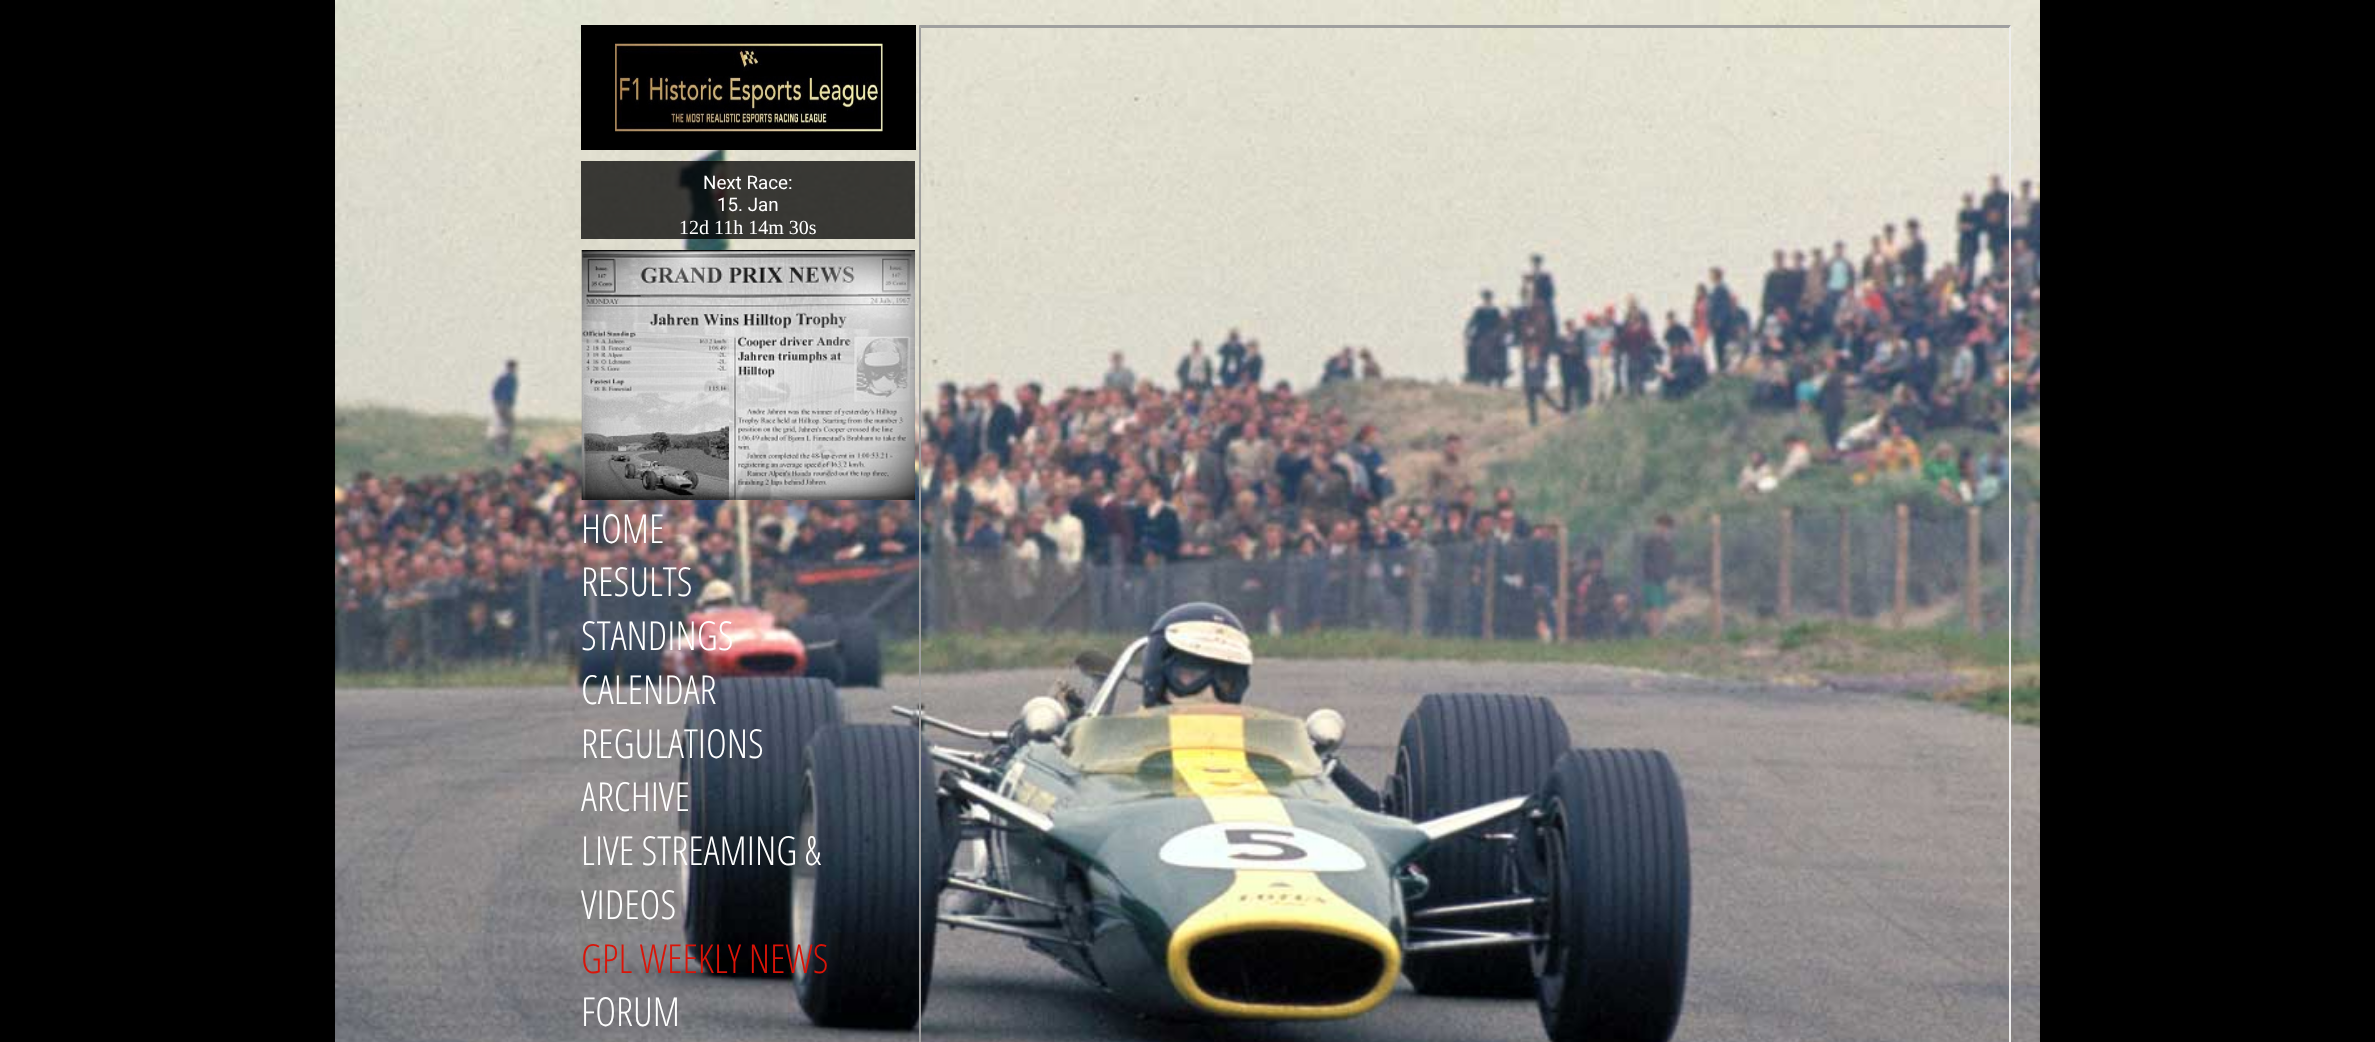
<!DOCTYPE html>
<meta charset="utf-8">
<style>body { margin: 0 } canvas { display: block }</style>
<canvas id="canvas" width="2375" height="1042"></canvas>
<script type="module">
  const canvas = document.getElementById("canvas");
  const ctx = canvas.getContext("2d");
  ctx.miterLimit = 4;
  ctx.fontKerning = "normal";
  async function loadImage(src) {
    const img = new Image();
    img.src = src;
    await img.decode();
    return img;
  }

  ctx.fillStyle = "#000000";
  ctx.fillRect(0, 0, 2375, 1042);
  ctx.drawImage(await loadImage("img1.png"), 335, 0, 1705, 1042);
  ctx.fillRect(581, 25, 335, 125);
  ctx.drawImage(await loadImage("img2.png"), 615, 43, 268, 89);
  ctx.fillStyle = "rgba(0, 0, 0, 0.75)";
  ctx.fillRect(581, 161, 334, 78);
  ctx.font = "18.75px Roboto";
  ctx.fillStyle = "#ffffff";
  ctx.fillText("Next Race:", 703, 189);
  ctx.fillText("15. Jan", 717, 211);
  ctx.font = "20px Liberation Serif";
  ctx.fillText("12d 11h 14m 30s", 679, 234);
  ctx.drawImage(await loadImage("img3.png"), 581, 250, 334, 250);
  ctx.font = "300 40px Open Sans Condensed";
  ctx.fillText("HOME", 581, 543);
  ctx.fillText("RESULTS", 581, 596);
  ctx.fillText("STANDINGS", 581, 650);
  ctx.fillText("CALENDAR", 581, 704);
  ctx.fillText("REGULATIONS", 581, 758);
  ctx.fillText("ARCHIVE", 581, 811);
  ctx.fillText("LIVE STREAMING &", 581, 865);
  ctx.fillText("VIDEOS", 581, 919);
  ctx.fillStyle = "#da1408";
  ctx.fillText("GPL WEEKLY NEWS", 581, 973);
  ctx.fillStyle = "#ffffff";
  ctx.fillText("FORUM", 581, 1026);
  ctx.fillStyle = "#9f9f9f";
  ctx.beginPath();
  ctx.moveTo(919, 25);
  ctx.lineTo(2011, 25);
  ctx.lineTo(2009, 28);
  ctx.lineTo(921, 28);
  ctx.closePath();
  ctx.fill();
  ctx.beginPath();
  ctx.moveTo(919, 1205);
  ctx.lineTo(919, 25);
  ctx.lineTo(921, 28);
  ctx.lineTo(921, 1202);
  ctx.closePath();
  ctx.fill();
  ctx.fillStyle = "#eeeeee";
  ctx.beginPath();
  ctx.moveTo(2011, 25);
  ctx.lineTo(2011, 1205);
  ctx.lineTo(2009, 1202);
  ctx.lineTo(2009, 28);
  ctx.closePath();
  ctx.fill();
</script>
